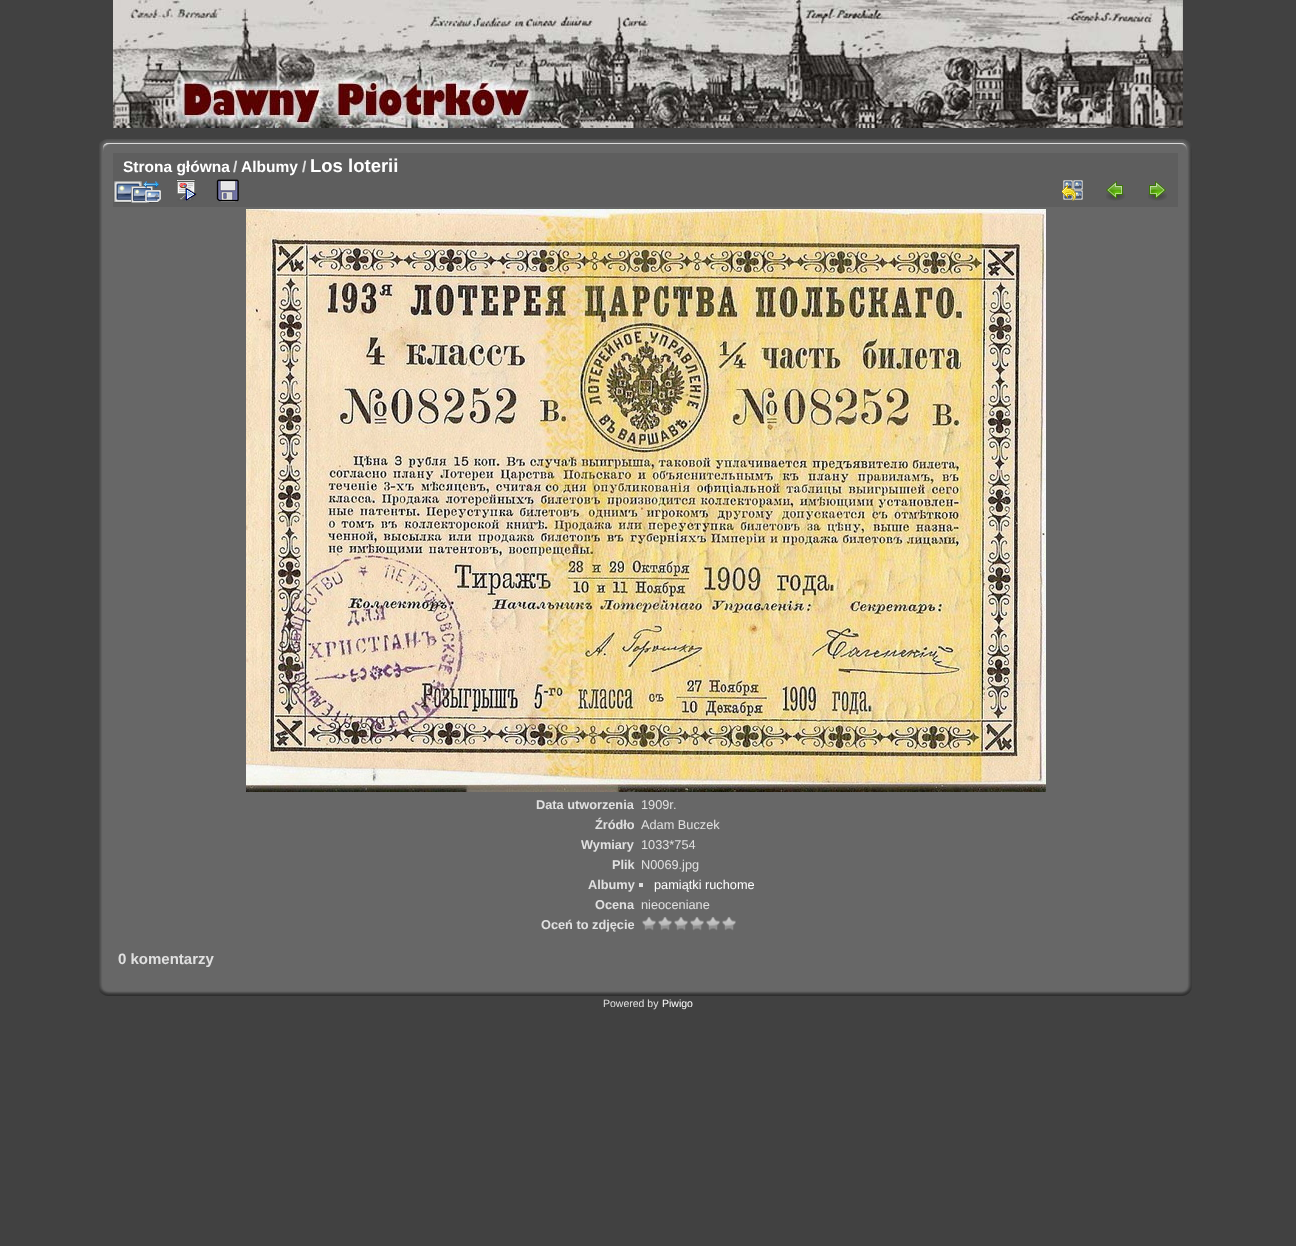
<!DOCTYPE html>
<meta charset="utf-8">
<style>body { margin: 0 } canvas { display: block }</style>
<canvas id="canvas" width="1296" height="1246"></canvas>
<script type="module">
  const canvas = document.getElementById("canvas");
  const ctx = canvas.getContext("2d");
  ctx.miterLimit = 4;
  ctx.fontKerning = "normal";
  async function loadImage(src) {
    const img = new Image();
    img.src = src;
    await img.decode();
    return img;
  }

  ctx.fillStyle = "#414141";
  ctx.fillRect(0, 0, 1296, 1246);
  ctx.drawImage(await loadImage("img1.png"), 113, 0, 1070, 128);
  ctx.drawImage(await loadImage("img2.png"), 99, 139, 14, 14);
  ctx.drawImage(await loadImage("img3.png"), 113, 139, 1065, 14);
  ctx.drawImage(await loadImage("img4.png"), 1178, 139, 14, 14);
  ctx.drawImage(await loadImage("img5.png"), 99, 153, 14, 829);
  ctx.fillStyle = "#676767";
  ctx.fillRect(113, 207, 1065, 775);
  ctx.fillStyle = "#5e5e5e";
  ctx.fillRect(113, 153, 1065, 54);
  ctx.drawImage(await loadImage("img6.png"), 114, 181, 47, 22);
  ctx.drawImage(await loadImage("img7.png"), 176, 179, 21, 22);
  ctx.drawImage(await loadImage("img8.png"), 216, 179, 23, 23);
  ctx.drawImage(await loadImage("img9.png"), 1062, 180, 21, 21);
  ctx.drawImage(await loadImage("img10.png"), 1106, 181, 19, 20);
  ctx.drawImage(await loadImage("img11.png"), 1148, 181, 19, 20);
  ctx.font = "bold 15.5px Liberation Sans";
  ctx.fillStyle = "#ffffff";
  ctx.fillText("Strona główna", 123, 172);
  ctx.fillStyle = "#e0e0e0";
  ctx.fillText("/", 233, 172);
  ctx.fillStyle = "#ffffff";
  ctx.fillText("Albumy", 241, 172);
  ctx.fillStyle = "#e0e0e0";
  ctx.fillText("/", 302, 172);
  ctx.font = "bold 18.5px Liberation Sans";
  ctx.fillStyle = "#ffffff";
  ctx.fillText("Los loterii", 310, 172);
  ctx.drawImage(await loadImage("img12.png"), 246, 209, 800, 583);
  ctx.font = "bold 12.75px Liberation Sans";
  ctx.fillStyle = "#e0e0e0";
  ctx.fillText("Data utworzenia", 536, 809);
  ctx.font = "12.75px Liberation Sans";
  ctx.fillText("1909r.", 641, 809);
  ctx.font = "bold 12.75px Liberation Sans";
  ctx.fillText("Źródło", 595, 829);
  ctx.font = "12.75px Liberation Sans";
  ctx.fillText("Adam Buczek", 641, 829);
  ctx.font = "bold 12.75px Liberation Sans";
  ctx.fillText("Wymiary", 581, 849);
  ctx.font = "12.75px Liberation Sans";
  ctx.fillText("1033*754", 641, 849);
  ctx.font = "bold 12.75px Liberation Sans";
  ctx.fillText("Plik", 612, 869);
  ctx.font = "12.75px Liberation Sans";
  ctx.fillText("N0069.jpg", 641, 869);
  ctx.font = "bold 12.75px Liberation Sans";
  ctx.fillText("Albumy", 588, 889);
  ctx.fillRect(639, 883, 4, 4);
  ctx.font = "12.75px Liberation Sans";
  ctx.fillStyle = "#ffffff";
  ctx.fillText("pamiątki ruchome", 654, 889);
  ctx.font = "bold 12.75px Liberation Sans";
  ctx.fillStyle = "#e0e0e0";
  ctx.fillText("Ocena", 595, 909);
  ctx.font = "12.75px Liberation Sans";
  ctx.fillText("nieoceniane", 641, 909);
  ctx.font = "bold 12.75px Liberation Sans";
  ctx.fillText("Oceń to zdjęcie", 541, 929);
  ctx.drawImage(await loadImage("img13.png"), 642, 917, 14, 14);
  ctx.drawImage(await loadImage("img13.png"), 658, 917, 14, 14);
  ctx.drawImage(await loadImage("img13.png"), 674, 917, 14, 14);
  ctx.drawImage(await loadImage("img13.png"), 690, 917, 14, 14);
  ctx.drawImage(await loadImage("img13.png"), 706, 917, 14, 14);
  ctx.drawImage(await loadImage("img13.png"), 722, 917, 14, 14);
  ctx.font = "bold 15px Liberation Sans";
  ctx.fillText("0 komentarzy", 118, 964);
  ctx.drawImage(await loadImage("img14.png"), 1178, 153, 14, 829);
  ctx.drawImage(await loadImage("img15.png"), 99, 982, 14, 14);
  ctx.drawImage(await loadImage("img16.png"), 113, 982, 1065, 14);
  ctx.drawImage(await loadImage("img17.png"), 1178, 982, 14, 14);
  ctx.font = "10.5px Liberation Sans";
  ctx.fillText("Powered by", 603, 1007);
  ctx.fillStyle = "#ffffff";
  ctx.fillText("Piwigo", 662, 1007);
</script>
